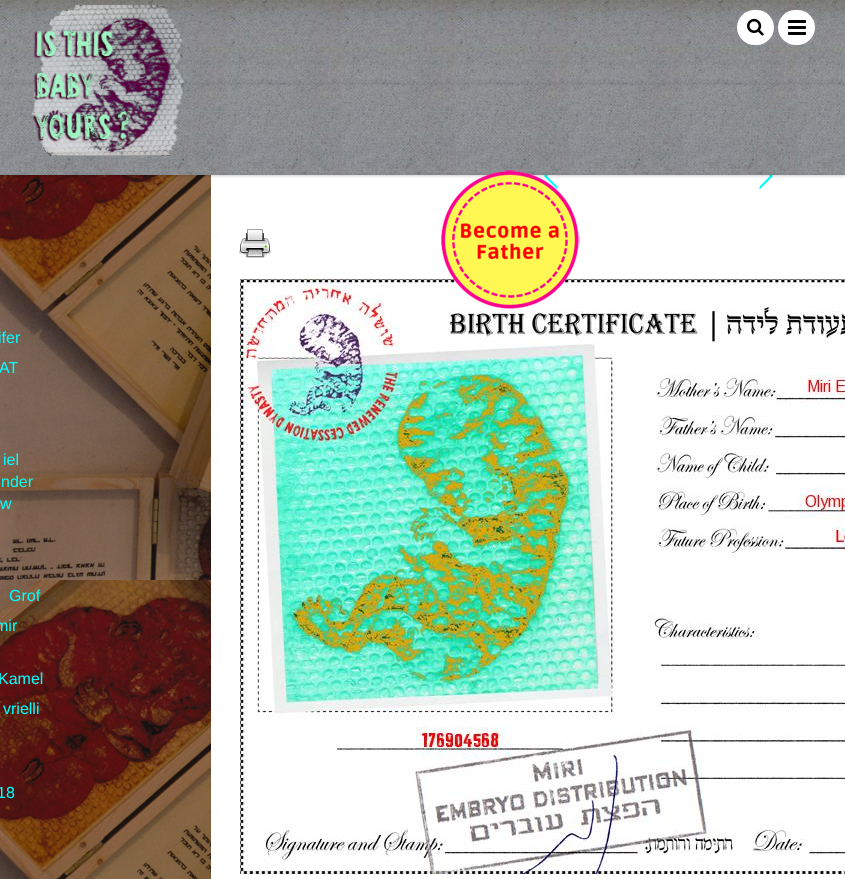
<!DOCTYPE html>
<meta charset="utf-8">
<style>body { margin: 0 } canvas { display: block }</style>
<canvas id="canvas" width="845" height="879"></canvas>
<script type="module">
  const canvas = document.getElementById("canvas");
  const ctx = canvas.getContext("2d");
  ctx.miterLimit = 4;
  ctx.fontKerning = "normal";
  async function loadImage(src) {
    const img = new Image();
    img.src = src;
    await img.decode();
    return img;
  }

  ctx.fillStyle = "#ffffff";
  ctx.fillRect(0, 0, 845, 879);
  ctx.drawImage(await loadImage("img1.png"), 0, 175, 211, 704);
  ctx.fillStyle = "#00ffff";
  ctx.beginPath();
  ctx.moveTo(557.5, 189.5);
  ctx.lineTo(544, 176);
  ctx.lineTo(547, 176);
  ctx.lineTo(557.5, 186.5);
  ctx.closePath();
  ctx.moveTo(544, 176);
  ctx.lineTo(557.5, 162.5);
  ctx.lineTo(557.5, 165.5);
  ctx.lineTo(547, 176);
  ctx.closePath();
  ctx.fill();
  ctx.beginPath();
  ctx.moveTo(759.5, 162.5);
  ctx.lineTo(773, 176);
  ctx.lineTo(770, 176);
  ctx.lineTo(759.5, 165.5);
  ctx.closePath();
  ctx.moveTo(773, 176);
  ctx.lineTo(759.5, 189.5);
  ctx.lineTo(759.5, 186.5);
  ctx.lineTo(770, 176);
  ctx.closePath();
  ctx.fill();
  ctx.fillStyle = "rgba(0, 0, 0, 0.2)";
  ctx.filter = "blur(1.5px)";
  ctx.beginPath();
  ctx.rect(0, 1, 845, 175);
  ctx.fill();
  ctx.filter = "none";
  ctx.drawImage(await loadImage("img2.png"), 0, 0, 845, 175);
  ctx.drawImage(await loadImage("img3.png"), 32, 5, 161, 151);
  ctx.fillStyle = "#ffffff";
  ctx.beginPath();
  ctx.roundRect(737, 10, 37, 35, 17.5);
  ctx.fill();
  ctx.drawImage(await loadImage("img4.png"), 747, 18, 17, 18);
  ctx.beginPath();
  ctx.roundRect(778, 10, 37, 35, 17.5);
  ctx.fill();
  ctx.drawImage(await loadImage("img5.png"), 788, 20, 18, 15);
  ctx.drawImage(await loadImage("img8.png"), 240, 279, 605, 595);
  ctx.drawImage(await loadImage("img6.png"), 441, 170, 139, 139);
  ctx.font = "16px Liberation Sans";
  ctx.fillStyle = "#00ffff";
  ctx.fillText("ifer", -2, 343);
  ctx.fillText("AT", -1, 373);
  ctx.fillText("iel", 3, 465);
  ctx.fillText("nder", 1, 487);
  ctx.fillText("w", 0, 509);
  ctx.fillText("Grof", 9, 601);
  ctx.fillText("mir", -5, 631);
  ctx.fillText("Kamel", -2, 684);
  ctx.fillText("vrielli", 3, 714);
  ctx.fillText("18", -3, 798);
  ctx.drawImage(await loadImage("img7.png"), 239, 229, 32, 29);
</script>
